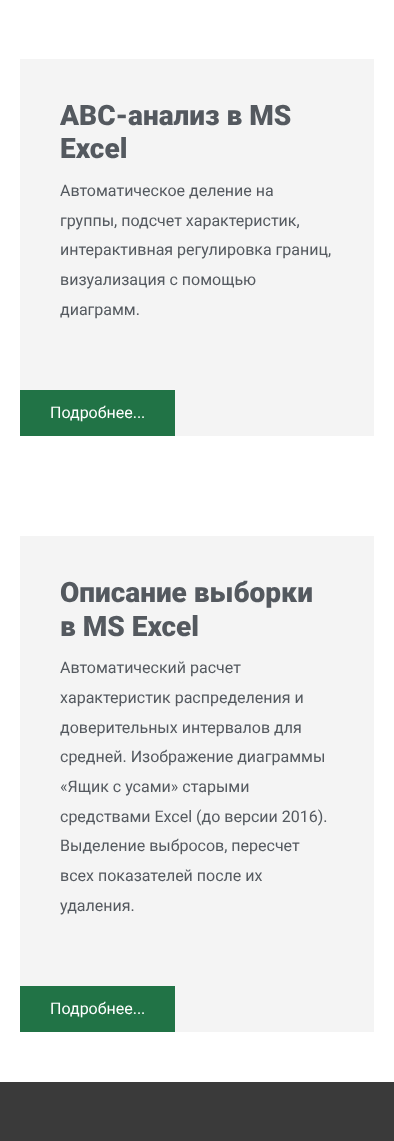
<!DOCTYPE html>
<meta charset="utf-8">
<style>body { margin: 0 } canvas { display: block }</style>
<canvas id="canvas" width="394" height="1141"></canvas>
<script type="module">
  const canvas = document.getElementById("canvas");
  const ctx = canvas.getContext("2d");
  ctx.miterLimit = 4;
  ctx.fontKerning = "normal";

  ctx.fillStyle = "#ffffff";
  ctx.fillRect(0, 0, 394, 1141);
  ctx.fillStyle = "#f4f4f4";
  ctx.fillRect(20, 59, 354, 331);
  ctx.font = "900 28px Roboto";
  ctx.fillStyle = "#54595f";
  ctx.fillText("ABC-анализ в MS", 60, 125);
  ctx.fillText("Excel", 60, 158);
  ctx.font = "16px Roboto";
  ctx.fillText("Автоматическое деление на", 60, 196);
  ctx.fillText("группы, подсчет характеристик,", 60, 226);
  ctx.fillText("интерактивная регулировка границ,", 60, 255);
  ctx.fillText("визуализация с помощью", 60, 285);
  ctx.fillText("диаграмм.", 60, 315);
  ctx.fillStyle = "#f4f4f4";
  ctx.fillRect(175, 390, 199, 46);
  ctx.fillStyle = "#217346";
  ctx.fillRect(20, 390, 155, 46);
  ctx.fillStyle = "#ffffff";
  ctx.fillText("Подробнее...", 50, 418);
  ctx.fillStyle = "#f4f4f4";
  ctx.fillRect(20, 536, 354, 450);
  ctx.font = "900 28px Roboto";
  ctx.fillStyle = "#54595f";
  ctx.fillText("Описание выборки", 60, 602);
  ctx.fillText("в MS Excel", 60, 636);
  ctx.font = "16px Roboto";
  ctx.fillText("Автоматический расчет", 60, 673);
  ctx.fillText("характеристик распределения и", 60, 703);
  ctx.fillText("доверительных интервалов для", 60, 733);
  ctx.fillText("средней. Изображение диаграммы", 60, 762);
  ctx.fillText("«Ящик с усами» старыми", 60, 792);
  ctx.fillText("средствами Excel (до версии 2016).", 60, 822);
  ctx.fillText("Выделение выбросов, пересчет", 60, 851);
  ctx.fillText("всех показателей после их", 60, 881);
  ctx.fillText("удаления.", 60, 911);
  ctx.fillStyle = "#f4f4f4";
  ctx.fillRect(175, 986, 199, 46);
  ctx.fillStyle = "#217346";
  ctx.fillRect(20, 986, 155, 46);
  ctx.fillStyle = "#ffffff";
  ctx.fillText("Подробнее...", 50, 1014);
  ctx.fillStyle = "#3a3a3a";
  ctx.fillRect(0, 1082, 394, 59);
</script>
